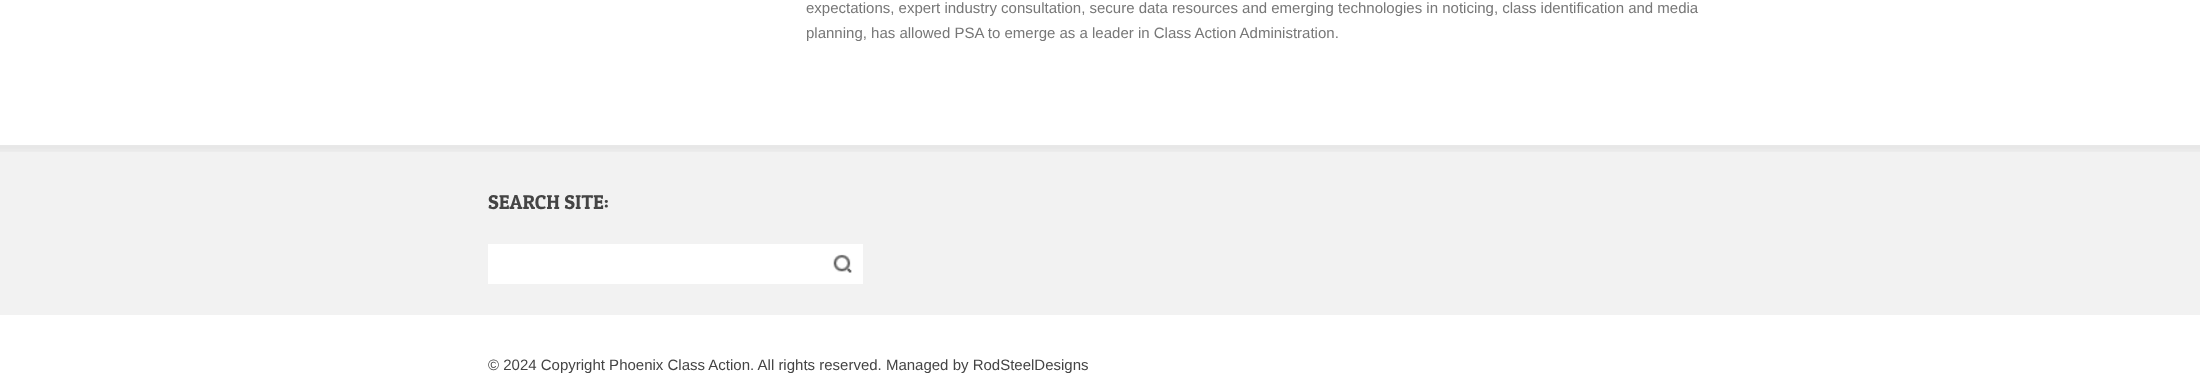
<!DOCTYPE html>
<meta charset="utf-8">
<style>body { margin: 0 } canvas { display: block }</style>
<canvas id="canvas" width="2200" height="387"></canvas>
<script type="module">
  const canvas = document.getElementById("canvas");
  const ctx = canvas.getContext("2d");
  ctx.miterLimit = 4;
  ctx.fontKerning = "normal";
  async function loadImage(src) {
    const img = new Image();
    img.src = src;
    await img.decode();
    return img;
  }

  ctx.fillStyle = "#ffffff";
  ctx.fillRect(0, 0, 2200, 387);
  ctx.font = "15px Liberation Sans";
  ctx.fillStyle = "#777777";
  ctx.fillText("expectations, expert industry consultation, secure data resources and emerging technologies in noticing, class identification and media", 806, 13);
  ctx.fillText("planning, has allowed PSA to emerge as a leader in Class Action Administration.", 806, 38);
  ctx.fillStyle = "#f2f2f2";
  ctx.fillRect(0, 145, 2200, 170);
  ctx.drawImage(await loadImage("img1.png"), 0, 145, 2200, 7);
  ctx.font = "20px Patua One";
  ctx.fillStyle = "#444444";
  ctx.fillText("SEARCH SITE:", 488, 209);
  ctx.fillStyle = "#ffffff";
  ctx.fillRect(488, 244, 375, 40);
  ctx.drawImage(await loadImage("img2.png"), 833, 254, 19, 19);
  ctx.font = "15px Liberation Sans";
  ctx.fillStyle = "#444444";
  ctx.fillText("© 2024 Copyright Phoenix Class Action. All rights reserved. Managed by RodSteelDesigns", 488, 370);
</script>
